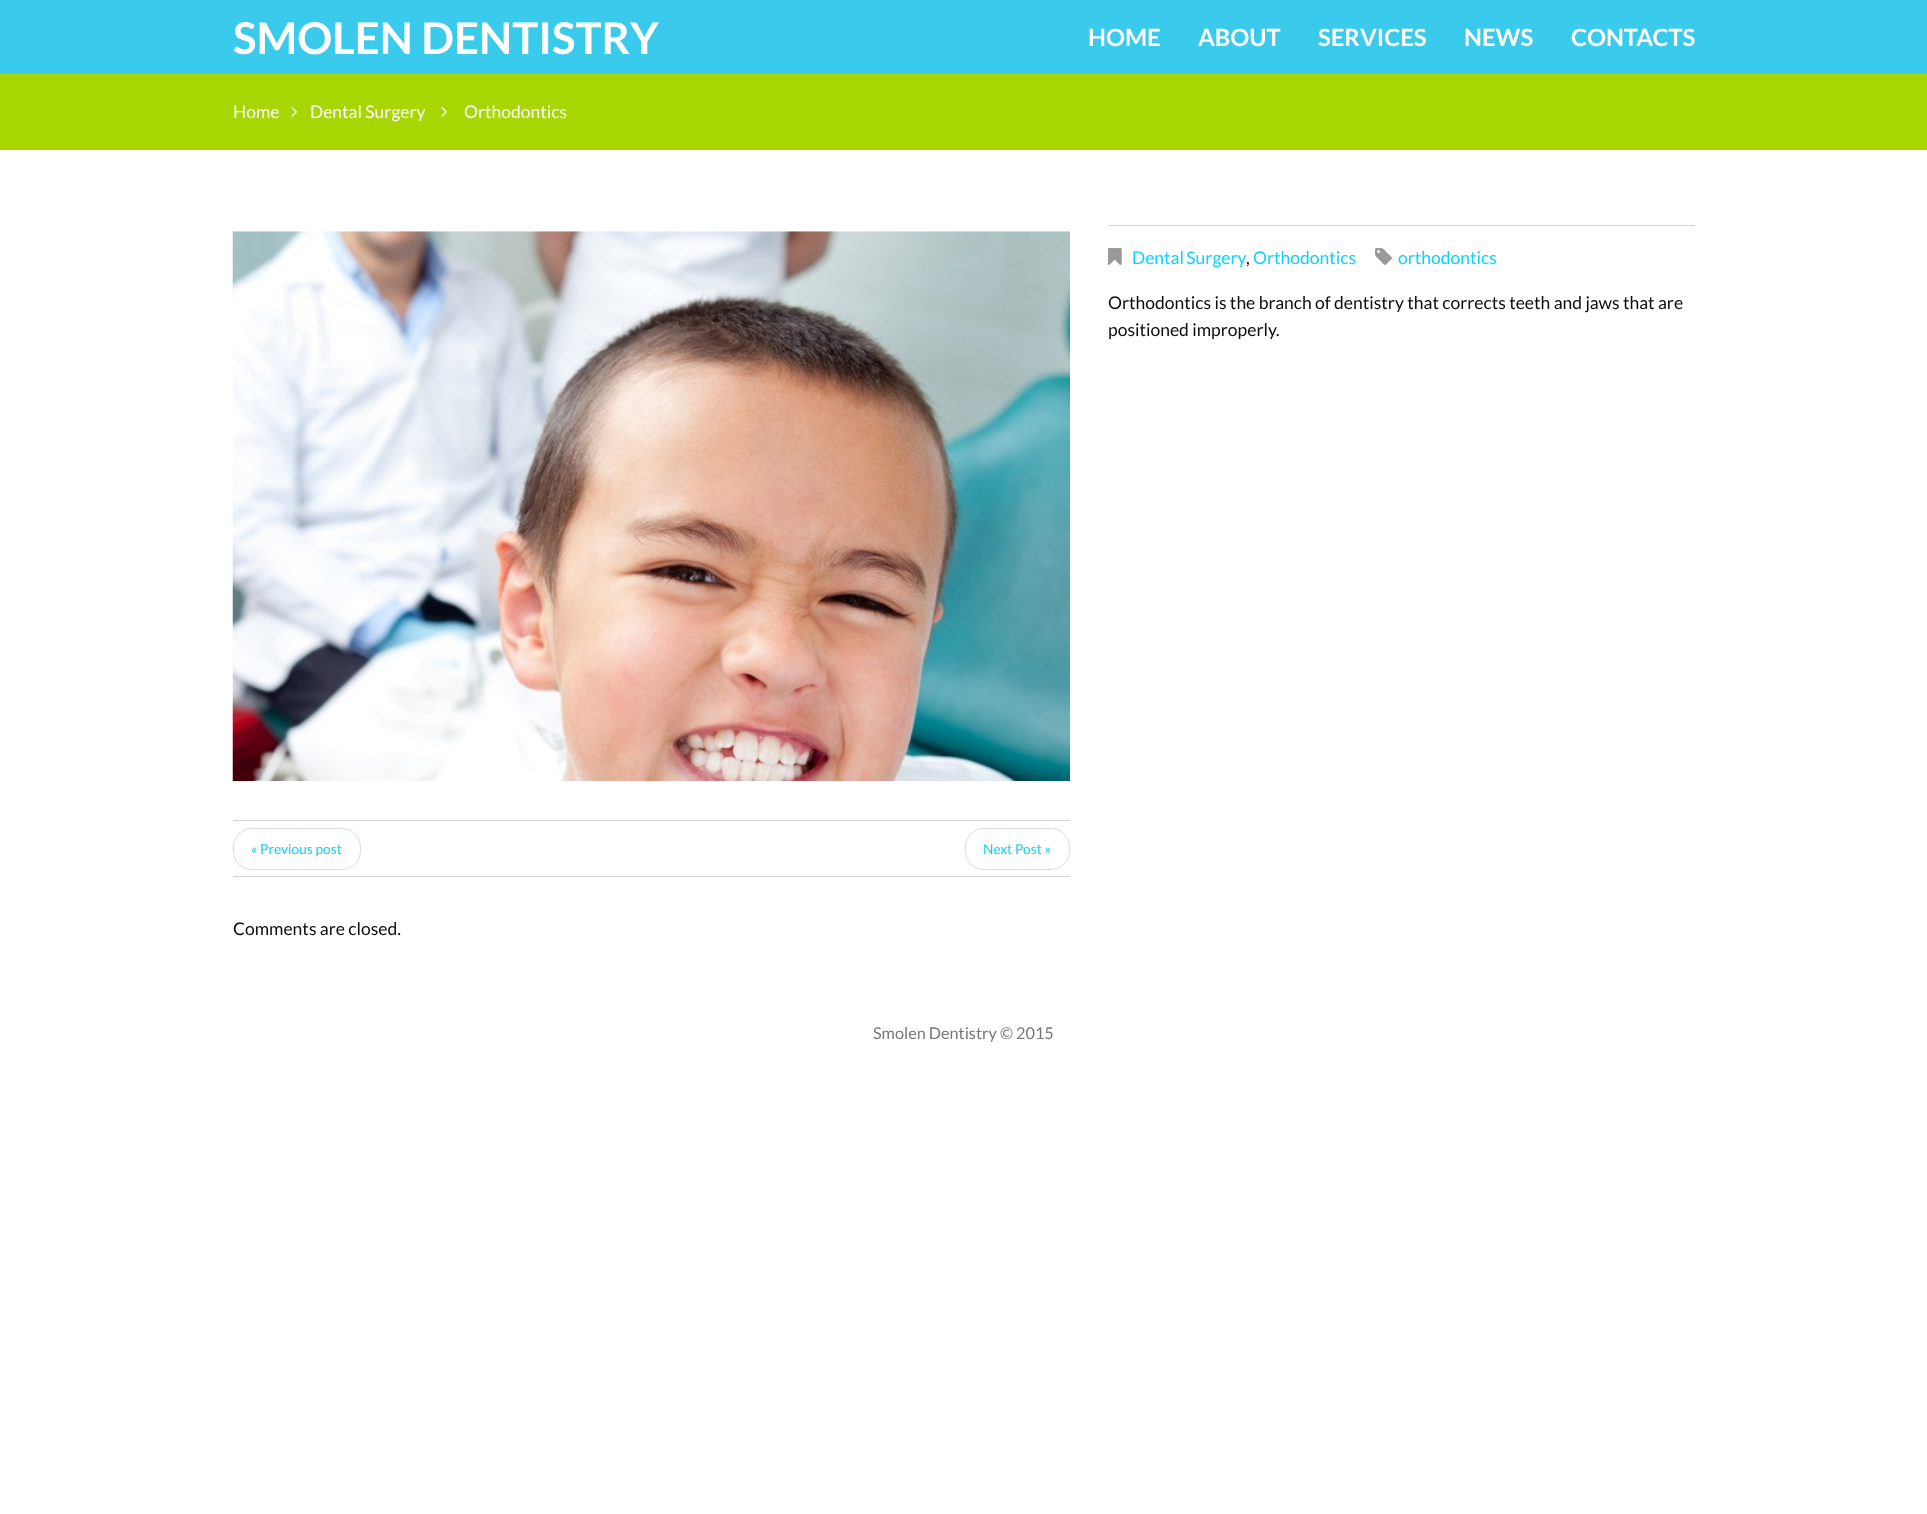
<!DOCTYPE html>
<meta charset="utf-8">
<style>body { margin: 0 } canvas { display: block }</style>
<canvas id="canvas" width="1927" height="1514"></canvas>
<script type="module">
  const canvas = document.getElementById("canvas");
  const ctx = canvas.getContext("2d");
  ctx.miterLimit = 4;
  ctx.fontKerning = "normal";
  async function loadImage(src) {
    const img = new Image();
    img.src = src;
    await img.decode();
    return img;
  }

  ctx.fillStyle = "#ffffff";
  ctx.fillRect(0, 0, 1927, 1514);
  ctx.fillStyle = "#39caec";
  ctx.fillRect(0, 0, 1927, 74);
  ctx.font = "bold 43.75px Lato";
  ctx.fillStyle = "#ffffff";
  ctx.fillText("SMOLEN DENTISTRY", 233, 54);
  ctx.font = "bold 23.75px Lato";
  ctx.fillText("HOME", 1088, 46);
  ctx.fillText("ABOUT", 1198, 46);
  ctx.fillText("SERVICES", 1318, 46);
  ctx.fillText("NEWS", 1464, 46);
  ctx.fillText("CONTACTS", 1571, 46);
  ctx.fillStyle = "#a8d603";
  ctx.fillRect(0, 74, 1927, 76);
  ctx.font = "17.5px Lato";
  ctx.fillStyle = "#ffffff";
  ctx.fillText("Home", 233, 118);
  ctx.drawImage(await loadImage("img1.png"), 291, 107, 6, 10);
  ctx.fillText("Dental Surgery", 310, 118);
  ctx.drawImage(await loadImage("img1.png"), 441, 107, 6, 10);
  ctx.fillText("Orthodontics", 464, 118);
  ctx.fillStyle = "#d3d3d2";
  ctx.fillRect(1108, 225, 587, 1);
  ctx.drawImage(await loadImage("img2.png"), 1108, 248, 14, 17);
  ctx.wordSpacing = "-1px";
  ctx.fillStyle = "#0fd0fd";
  ctx.fillText("Dental Surgery", 1132, 264);
  ctx.wordSpacing = "0px";
  ctx.fillStyle = "#0c0c0c";
  ctx.fillText(",", 1246, 264);
  ctx.fillStyle = "#0fd0fd";
  ctx.fillText("Orthodontics", 1253, 264);
  ctx.drawImage(await loadImage("img3.png"), 1375, 248, 17, 17);
  ctx.fillText("orthodontics", 1398, 264);
  ctx.fillStyle = "#0c0c0c";
  ctx.fillText("Orthodontics is the branch of dentistry that corrects teeth and jaws that are", 1108, 309);
  ctx.fillText("positioned improperly.", 1108, 336);
  ctx.drawImage(await loadImage("img4.png"), 232, 231, 838, 551);
  ctx.fillStyle = "#d3d3d2";
  ctx.fillRect(233, 820, 837, 1);
  ctx.fillRect(233, 876, 837, 1);
  ctx.beginPath();
  ctx.roundRect(233.5, 828.5, 127, 41, 18.5);
  ctx.strokeStyle = "#dddddd";
  ctx.stroke();
  ctx.font = "13.75px Lato";
  ctx.fillStyle = "#0fd0fd";
  ctx.fillText("« Previous post", 251, 854);
  ctx.beginPath();
  ctx.roundRect(965.5, 828.5, 104, 41, 18.5);
  ctx.stroke();
  ctx.fillText("Next Post »", 983, 854);
  ctx.font = "17.5px Lato";
  ctx.fillStyle = "#0c0c0c";
  ctx.fillText("Comments are closed.", 233, 935);
  ctx.font = "16.25px Lato";
  ctx.fillStyle = "#777777";
  ctx.fillText("Smolen Dentistry © 2015", 873, 1039);
</script>
